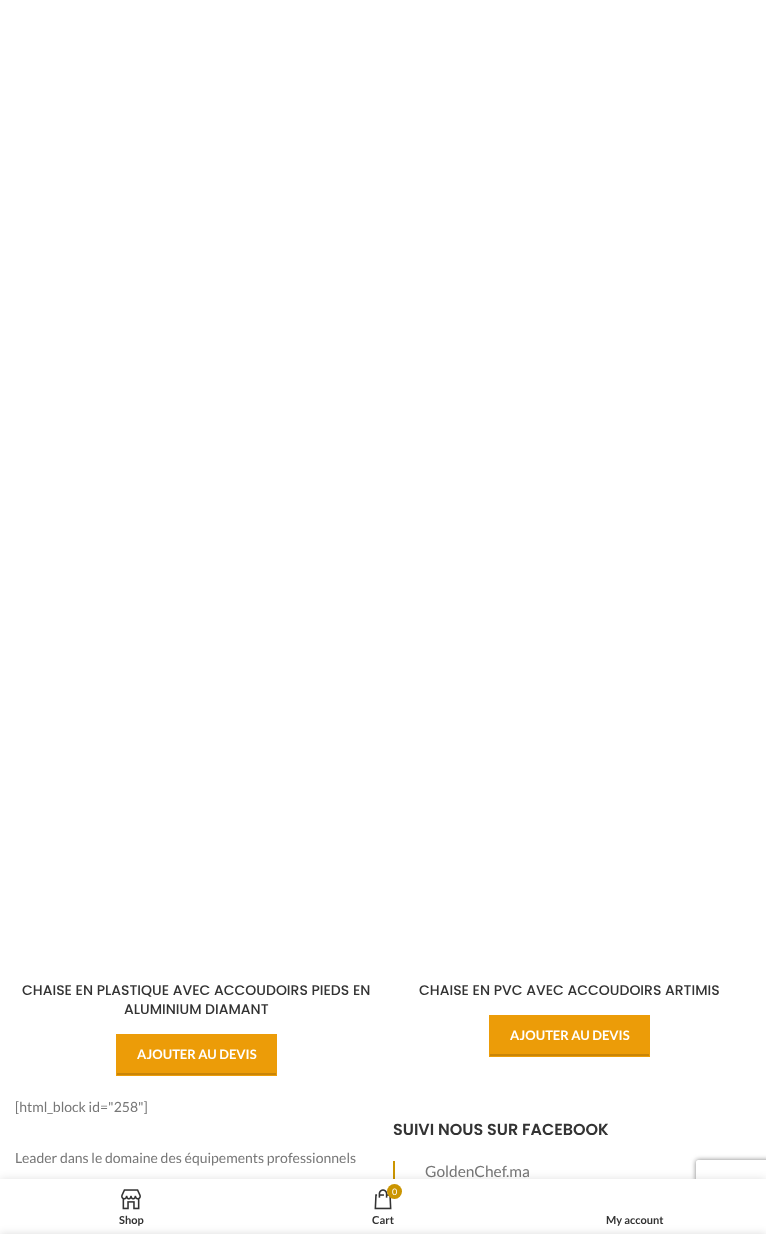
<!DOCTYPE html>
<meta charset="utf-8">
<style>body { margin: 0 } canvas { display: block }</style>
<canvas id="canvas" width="766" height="1234"></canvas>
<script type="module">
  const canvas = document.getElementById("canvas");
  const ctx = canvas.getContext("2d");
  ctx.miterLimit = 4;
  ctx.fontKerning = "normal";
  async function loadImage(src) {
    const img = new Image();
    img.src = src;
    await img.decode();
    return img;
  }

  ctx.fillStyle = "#ffffff";
  ctx.fillRect(0, 0, 766, 1234);
  ctx.font = "500 14px Poppins";
  ctx.fillStyle = "#333333";
  ctx.fillText("CHAISE EN PLASTIQUE AVEC ACCOUDOIRS PIEDS EN", 22, 995);
  ctx.fillText("ALUMINIUM DIAMANT", 124, 1014);
  ctx.fillStyle = "#ec9c08";
  ctx.fillRect(116, 1034, 161, 42);
  ctx.fillStyle = "#c98507";
  ctx.fillRect(117, 1073, 159, 2);
  ctx.font = "bold 13px Lato";
  ctx.fillStyle = "#ffffff";
  ctx.fillText("AJOUTER AU DEVIS", 137, 1059);
  ctx.font = "500 14px Poppins";
  ctx.fillStyle = "#333333";
  ctx.fillText("CHAISE EN PVC AVEC ACCOUDOIRS ARTIMIS", 419, 995);
  ctx.fillStyle = "#ec9c08";
  ctx.fillRect(489, 1015, 161, 42);
  ctx.fillStyle = "#c98507";
  ctx.fillRect(490, 1054, 159, 2);
  ctx.font = "bold 13px Lato";
  ctx.fillStyle = "#ffffff";
  ctx.fillText("AJOUTER AU DEVIS", 510, 1040);
  ctx.font = "14px Lato";
  ctx.fillStyle = "#777777";
  ctx.fillText("[html_block id=\"258\"]", 15, 1112);
  ctx.fillText("Leader dans le domaine des équipements professionnels", 15, 1163);
  ctx.font = "600 16px Poppins";
  ctx.fillStyle = "#333333";
  ctx.fillText("SUIVI NOUS SUR FACEBOOK", 393, 1135);
  ctx.fillStyle = "#cb9500";
  ctx.fillRect(393, 1161, 2, 22);
  ctx.font = "15.5px Lato";
  ctx.fillStyle = "#777777";
  ctx.fillText("GoldenChef.ma", 425, 1177);
  ctx.fillStyle = "rgba(0, 0, 0, 0.12)";
  ctx.filter = "blur(4.5px)";
  ctx.beginPath();
  ctx.rect(0, 1179, 766, 55);
  ctx.fill();
  ctx.filter = "none";
  ctx.save();
  ctx.beginPath();
  ctx.moveTo(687, 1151);
  ctx.lineTo(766, 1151);
  ctx.lineTo(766, 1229);
  ctx.lineTo(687, 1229);
  ctx.closePath();
  ctx.moveTo(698, 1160);
  ctx.lineTo(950, 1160);
  ctx.bezierCurveTo(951, 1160, 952, 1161, 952, 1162);
  ctx.lineTo(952, 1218);
  ctx.bezierCurveTo(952, 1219, 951, 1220, 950, 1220);
  ctx.lineTo(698, 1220);
  ctx.bezierCurveTo(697, 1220, 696, 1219, 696, 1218);
  ctx.lineTo(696, 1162);
  ctx.bezierCurveTo(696, 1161, 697, 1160, 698, 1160);
  ctx.closePath();
  ctx.clip("evenodd");
  ctx.fillStyle = "#808080";
  ctx.filter = "blur(2.5px)";
  ctx.beginPath();
  ctx.roundRect(696, 1160, 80, 60, 2);
  ctx.fill();
  ctx.filter = "none";
  ctx.restore();
  ctx.fillStyle = "#ffffff";
  ctx.fillRect(0, 1179, 766, 55);
  ctx.drawImage(await loadImage("img1.png"), 121, 1189, 20, 21);
  ctx.font = "bold 11px Lato";
  ctx.fillStyle = "#333333";
  ctx.fillText("Shop", 119, 1224);
  ctx.drawImage(await loadImage("img2.png"), 374, 1189, 18, 21);
  ctx.fillStyle = "#cb9500";
  ctx.beginPath();
  ctx.arc(394.5, 1191.5, 7.5, 0, Math.PI * 2);
  ctx.fill();
  ctx.font = "9px Lato";
  ctx.fillStyle = "#ffffff";
  ctx.fillText("0", 392, 1195);
  ctx.font = "bold 11px Lato";
  ctx.fillStyle = "#333333";
  ctx.fillText("Cart", 372, 1224);
  ctx.fillText("My account", 606, 1224);
  ctx.fillStyle = "rgba(0, 0, 0, 0.14)";
  ctx.filter = "blur(4.5px)";
  ctx.beginPath();
  ctx.rect(0, 1234, 766, 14);
  ctx.fill();
  ctx.filter = "none";
</script>
